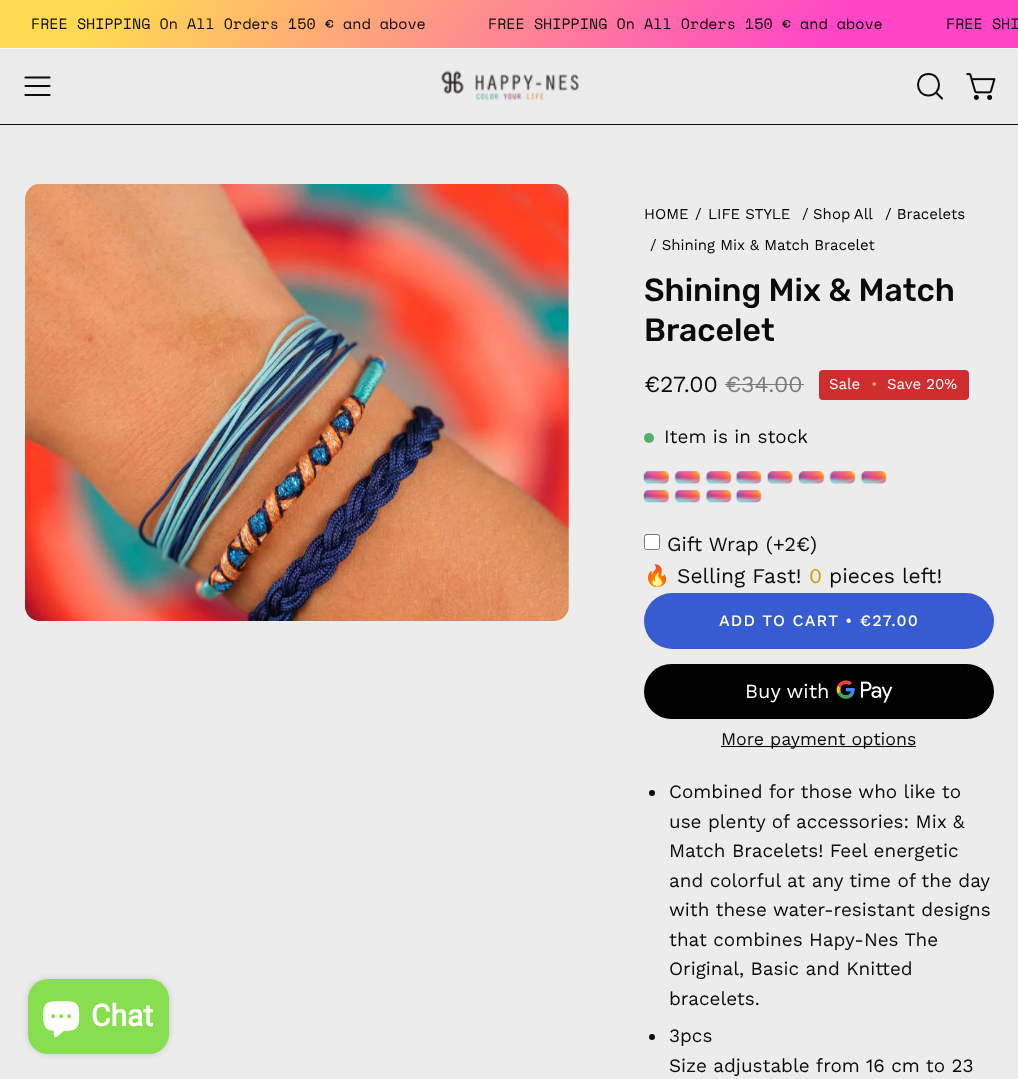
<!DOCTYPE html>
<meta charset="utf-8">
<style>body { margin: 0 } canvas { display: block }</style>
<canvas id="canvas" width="1018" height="1079"></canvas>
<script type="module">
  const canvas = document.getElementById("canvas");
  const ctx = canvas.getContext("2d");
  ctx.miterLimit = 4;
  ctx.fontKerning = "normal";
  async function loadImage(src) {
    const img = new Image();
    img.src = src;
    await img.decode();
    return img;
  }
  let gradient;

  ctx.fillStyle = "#ececec";
  ctx.fillRect(0, 0, 1018, 1079);
  gradient = ctx.createLinearGradient(173, -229, 846, 278);
  gradient.addColorStop(0.11, "#fed951");
  gradient.addColorStop(0.81, "#ff46c7");
  ctx.fillStyle = gradient;
  ctx.fillRect(0, 0, 1018, 48);
  ctx.fillStyle = "#fff7f2";
  ctx.fillRect(0, 48, 1018, 1);
  ctx.font = "15px Space Mono";
  ctx.fillStyle = "#0b0b0b";
  ctx.fillText("FREE SHIPPING On All Orders 150 € and above", 31, 29);
  ctx.fillText("FREE SHIPPING On All Orders 150 € and above", 488, 29);
  ctx.fillText("FREE SHI", 946, 29);
  ctx.beginPath();
  ctx.moveTo(25.5, 86);
  ctx.lineTo(49.5, 86);
  ctx.moveTo(25.5, 77.5);
  ctx.lineTo(49.5, 77.5);
  ctx.moveTo(25.5, 95);
  ctx.lineTo(49.5, 95);
  ctx.strokeStyle = "#0b0b0b";
  ctx.lineWidth = 2.2;
  ctx.lineCap = "round";
  ctx.lineJoin = "round";
  ctx.stroke();
  ctx.drawImage(await loadImage("img1.png"), 441, 70, 138, 31);
  ctx.beginPath();
  ctx.moveTo(928.5, 95.5);
  ctx.bezierCurveTo(942.5, 95.5, 942.5, 74, 928.5, 74);
  ctx.bezierCurveTo(914.5, 74, 914.5, 95.5, 928.5, 95.5);
  ctx.closePath();
  ctx.moveTo(936, 92.5);
  ctx.lineTo(942, 98.5);
  ctx.lineWidth = 2;
  ctx.stroke();
  ctx.drawImage(await loadImage("img2.png"), 966, 73, 30, 27);
  ctx.beginPath();
  ctx.moveTo(0, 124);
  ctx.lineTo(0, 125);
  ctx.lineTo(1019, 125);
  ctx.lineTo(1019, 50);
  ctx.lineTo(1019, 124);
  ctx.closePath();
  ctx.fill();
  ctx.fillStyle = "rgba(0, 0, 0, 0.15)";
  ctx.filter = "blur(3px)";
  ctx.beginPath();
  ctx.roundRect(28, 979, 141, 75, 20);
  ctx.fill();
  ctx.filter = "none";
  ctx.fillStyle = "#87df4f";
  ctx.beginPath();
  ctx.roundRect(28, 979, 141, 75, 20);
  ctx.fill();
  ctx.drawImage(await loadImage("img3.png"), 43, 1001, 37, 37);
  ctx.font = "bold 30px Roboto";
  ctx.fillStyle = "#ffffff";
  ctx.fillText("Chat", 91, 1026);
  ctx.drawImage(await loadImage("img4.png"), 25, 184, 544, 437);
  ctx.font = "15px Work Sans";
  ctx.fillStyle = "#000000";
  ctx.fillText("HOME", 644, 219);
  ctx.fillText("/", 695, 219);
  ctx.fillText("LIFE STYLE", 708, 219);
  ctx.fillText("/", 802, 219);
  ctx.wordSpacing = "-1px";
  ctx.fillText("Shop All", 813, 219);
  ctx.wordSpacing = "0px";
  ctx.fillText("/ Bracelets", 885, 219);
  ctx.fillText("/ Shining Mix & Match Bracelet", 650, 250);
  ctx.font = "500 32px Rubik";
  ctx.fillStyle = "#0b0b0b";
  ctx.fillText("Shining Mix & Match", 644, 301);
  ctx.fillText("Bracelet", 644, 341);
  ctx.font = "23px Work Sans";
  ctx.fillText("€27.00", 644, 392);
  ctx.fillStyle = "#7c7c7c";
  ctx.fillText("€34.00", 725, 392);
  ctx.fillRect(725, 384, 79, 1);
  ctx.fillStyle = "#d02e2e";
  ctx.beginPath();
  ctx.roundRect(819, 370, 150, 30, 4);
  ctx.fill();
  ctx.font = "15px Work Sans";
  ctx.fillStyle = "#ffffff";
  ctx.fillText("Sale", 829, 389);
  ctx.fillStyle = "#e89797";
  ctx.fillText("•", 871, 389);
  ctx.fillStyle = "#ffffff";
  ctx.fillText("Save 20%", 887, 389);
  ctx.fillStyle = "#56ad6a";
  ctx.beginPath();
  ctx.arc(649, 438, 5, 0, Math.PI * 2);
  ctx.fill();
  ctx.font = "18.9px Work Sans";
  ctx.fillStyle = "#0b0b0b";
  ctx.fillText("Item is in stock", 664, 443);
  ctx.drawImage(await loadImage("img5.png"), 643, 471, 26, 14);
  ctx.drawImage(await loadImage("img6.png"), 674, 471, 27, 14);
  ctx.drawImage(await loadImage("img7.png"), 705, 471, 27, 14);
  ctx.drawImage(await loadImage("img8.png"), 735, 471, 27, 14);
  ctx.drawImage(await loadImage("img9.png"), 767, 471, 26, 14);
  ctx.drawImage(await loadImage("img10.png"), 798, 471, 26, 14);
  ctx.drawImage(await loadImage("img11.png"), 829, 471, 27, 14);
  ctx.drawImage(await loadImage("img12.png"), 860, 471, 27, 14);
  ctx.drawImage(await loadImage("img13.png"), 643, 489, 26, 14);
  ctx.drawImage(await loadImage("img14.png"), 674, 489, 27, 14);
  ctx.drawImage(await loadImage("img15.png"), 705, 489, 27, 14);
  ctx.drawImage(await loadImage("img16.png"), 735, 489, 27, 14);
  ctx.fillStyle = "#ffffff";
  ctx.beginPath();
  ctx.roundRect(644.5, 534.5, 15, 15, 2);
  ctx.fill();
  ctx.strokeStyle = "#767676";
  ctx.lineWidth = 1;
  ctx.lineJoin = "miter";
  ctx.stroke();
  ctx.font = "20px Work Sans";
  ctx.fillStyle = "#0b0b0b";
  ctx.fillText("Gift Wrap (+2€)", 667, 551);
  ctx.font = "21px Noto Color Emoji";
  ctx.fillText("🔥", 644, 583);
  ctx.font = "21px Work Sans";
  ctx.fillText("Selling Fast!", 677, 583);
  ctx.fillStyle = "#d89b00";
  ctx.fillText("0", 809, 583);
  ctx.fillStyle = "#0b0b0b";
  ctx.fillText("pieces left!", 829, 583);
  ctx.fillStyle = "#375cd1";
  ctx.beginPath();
  ctx.roundRect(644, 593, 350, 56, 28);
  ctx.fill();
  ctx.letterSpacing = "1.2px";
  ctx.font = "500 16px Work Sans";
  ctx.fillStyle = "#ffffff";
  ctx.fillText("ADD TO CART • €27.00", 719, 626);
  ctx.fillStyle = "#000000";
  ctx.beginPath();
  ctx.roundRect(644, 664, 350, 55, 27.5);
  ctx.fill();
  ctx.letterSpacing = "0px";
  ctx.font = "20px Work Sans";
  ctx.fillStyle = "#ffffff";
  ctx.fillText("Buy with", 745, 698);
  ctx.drawImage(await loadImage("img17.png"), 836, 680, 57, 23);
  ctx.fillStyle = "#0b0b0b";
  ctx.fillRect(721, 746, 195, 1);
  ctx.font = "17.8px Work Sans";
  ctx.fillText("More payment options", 721, 745);
  ctx.beginPath();
  ctx.arc(652, 793, 3, 0, Math.PI * 2);
  ctx.fill();
  ctx.font = "18.9px Work Sans";
  ctx.fillText("Combined for those who like to", 669, 798);
  ctx.fillText("use plenty of accessories: Mix &", 669, 828);
  ctx.fillText("Match Bracelets! Feel energetic", 669, 857);
  ctx.fillText("and colorful at any time of the day", 669, 887);
  ctx.fillText("with these water-resistant designs", 669, 916);
  ctx.fillText("that combines Hapy-Nes The", 669, 946);
  ctx.fillText("Original, Basic and Knitted", 669, 975);
  ctx.fillText("bracelets.", 669, 1005);
  ctx.beginPath();
  ctx.arc(652, 1037, 3, 0, Math.PI * 2);
  ctx.fill();
  ctx.fillText("3pcs", 669, 1042);
  ctx.fillText("Size adjustable from 16 cm to 23", 669, 1072);
</script>
